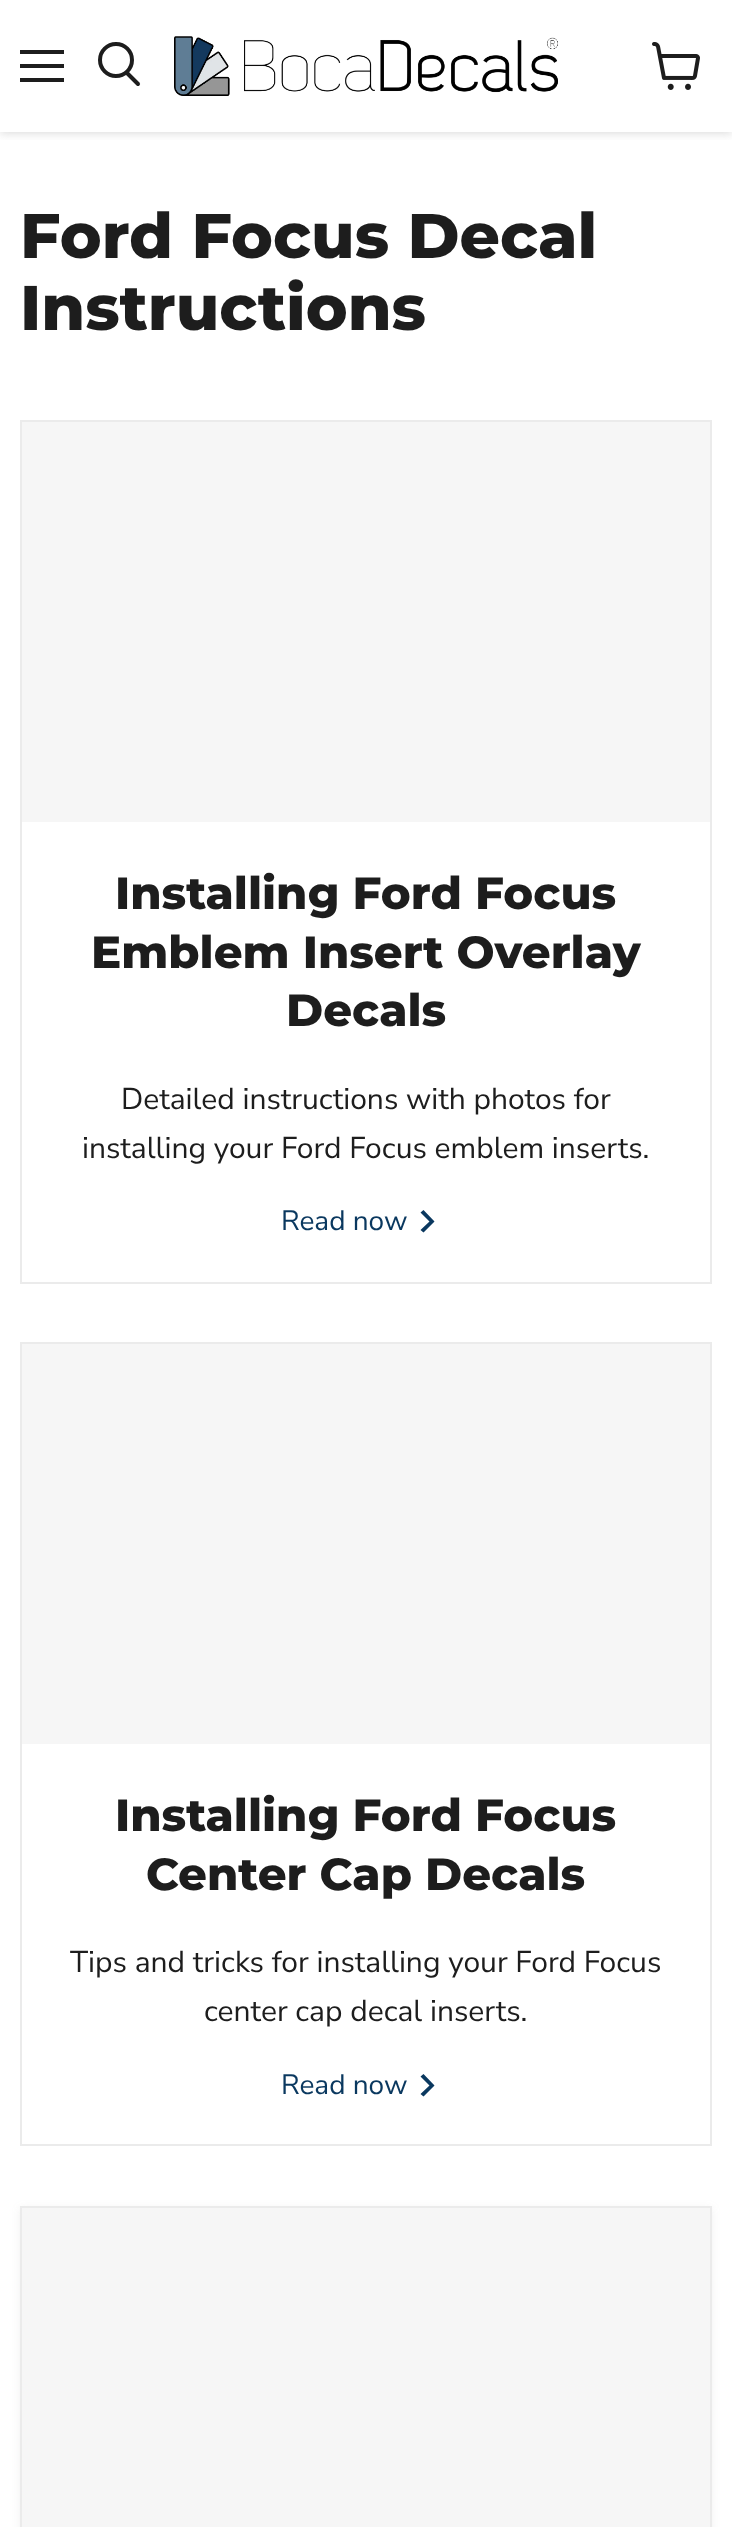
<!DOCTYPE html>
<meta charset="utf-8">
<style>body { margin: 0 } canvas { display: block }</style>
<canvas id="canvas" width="732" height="2527"></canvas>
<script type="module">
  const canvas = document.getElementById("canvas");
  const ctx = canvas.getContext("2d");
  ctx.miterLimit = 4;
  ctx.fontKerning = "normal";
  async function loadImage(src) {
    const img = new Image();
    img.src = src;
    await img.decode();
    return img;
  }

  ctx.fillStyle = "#ffffff";
  ctx.fillRect(0, 0, 732, 2527);
  ctx.save();
  ctx.beginPath();
  ctx.rect(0, 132, 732, 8);
  ctx.clip();
  ctx.fillStyle = "rgba(128, 128, 128, 0.25)";
  ctx.filter = "blur(4px)";
  ctx.beginPath();
  ctx.rect(0, 2, 732, 132);
  ctx.fill();
  ctx.filter = "none";
  ctx.restore();
  ctx.fillStyle = "#1d1d1d";
  ctx.fillRect(20, 50, 44, 4);
  ctx.fillRect(20, 64, 44, 4);
  ctx.fillRect(20, 78, 44, 4);
  ctx.beginPath();
  ctx.moveTo(138, 84);
  ctx.lineTo(127, 73);
  ctx.strokeStyle = "#1d1d1d";
  ctx.lineWidth = 4;
  ctx.lineCap = "round";
  ctx.stroke();
  ctx.beginPath();
  ctx.arc(116, 60, 16, 0, Math.PI * 2);
  ctx.stroke();
  ctx.drawImage(await loadImage("img1.png"), 174, 36, 384, 60);
  ctx.drawImage(await loadImage("img2.png"), 652, 42, 48, 48);
  ctx.font = "800 63px Montserrat";
  ctx.fillText("Ford Focus Decal", 20, 258);
  ctx.fillText("Instructions", 20, 330);
  ctx.strokeStyle = "#ebebeb";
  ctx.lineWidth = 2;
  ctx.strokeRect(21, 421, 690, 862);
  ctx.fillStyle = "#f6f6f6";
  ctx.fillRect(22, 422, 688, 400);
  ctx.font = "800 45px Montserrat";
  ctx.fillStyle = "#1d1d1d";
  ctx.fillText("Installing Ford Focus", 115, 909);
  ctx.fillText("Emblem Insert Overlay", 91, 968);
  ctx.fillText("Decals", 286, 1026);
  ctx.font = "30px Nunito Sans";
  ctx.fillText("Detailed instructions with photos for", 121, 1109);
  ctx.fillText("installing your Ford Focus emblem inserts.", 82, 1158);
  ctx.font = "28px Nunito Sans";
  ctx.fillStyle = "#0a385f";
  ctx.fillText("Read now", 281, 1230);
  ctx.beginPath();
  ctx.moveTo(429.5, 1221.5);
  ctx.lineTo(420.5, 1212.5);
  ctx.lineTo(423.5, 1210);
  ctx.lineTo(434.5, 1221.5);
  ctx.lineTo(423.5, 1232.5);
  ctx.lineTo(420.5, 1230);
  ctx.closePath();
  ctx.fill("evenodd");
  ctx.strokeRect(21, 1343, 690, 802);
  ctx.fillStyle = "#f6f6f6";
  ctx.fillRect(22, 1344, 688, 400);
  ctx.font = "800 45px Montserrat";
  ctx.fillStyle = "#1d1d1d";
  ctx.fillText("Installing Ford Focus", 115, 1831);
  ctx.fillText("Center Cap Decals", 146, 1890);
  ctx.font = "30px Nunito Sans";
  ctx.fillText("Tips and tricks for installing your Ford Focus", 70, 1972);
  ctx.fillText("center cap decal inserts.", 204, 2021);
  ctx.font = "28px Nunito Sans";
  ctx.fillStyle = "#0a385f";
  ctx.fillText("Read now", 281, 2094);
  ctx.beginPath();
  ctx.moveTo(429.5, 2085.5);
  ctx.lineTo(420.5, 2076.5);
  ctx.lineTo(423.5, 2074);
  ctx.lineTo(434.5, 2085.5);
  ctx.lineTo(423.5, 2096.5);
  ctx.lineTo(420.5, 2094);
  ctx.closePath();
  ctx.fill("evenodd");
  ctx.fillStyle = "rgba(128, 128, 128, 0.11)";
  ctx.filter = "blur(4px)";
  ctx.beginPath();
  ctx.rect(20, 2208, 692, 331);
  ctx.fill();
  ctx.filter = "none";
  ctx.strokeRect(21, 2207, 690, 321);
  ctx.fillStyle = "#f6f6f6";
  ctx.fillRect(22, 2208, 688, 319);
</script>
